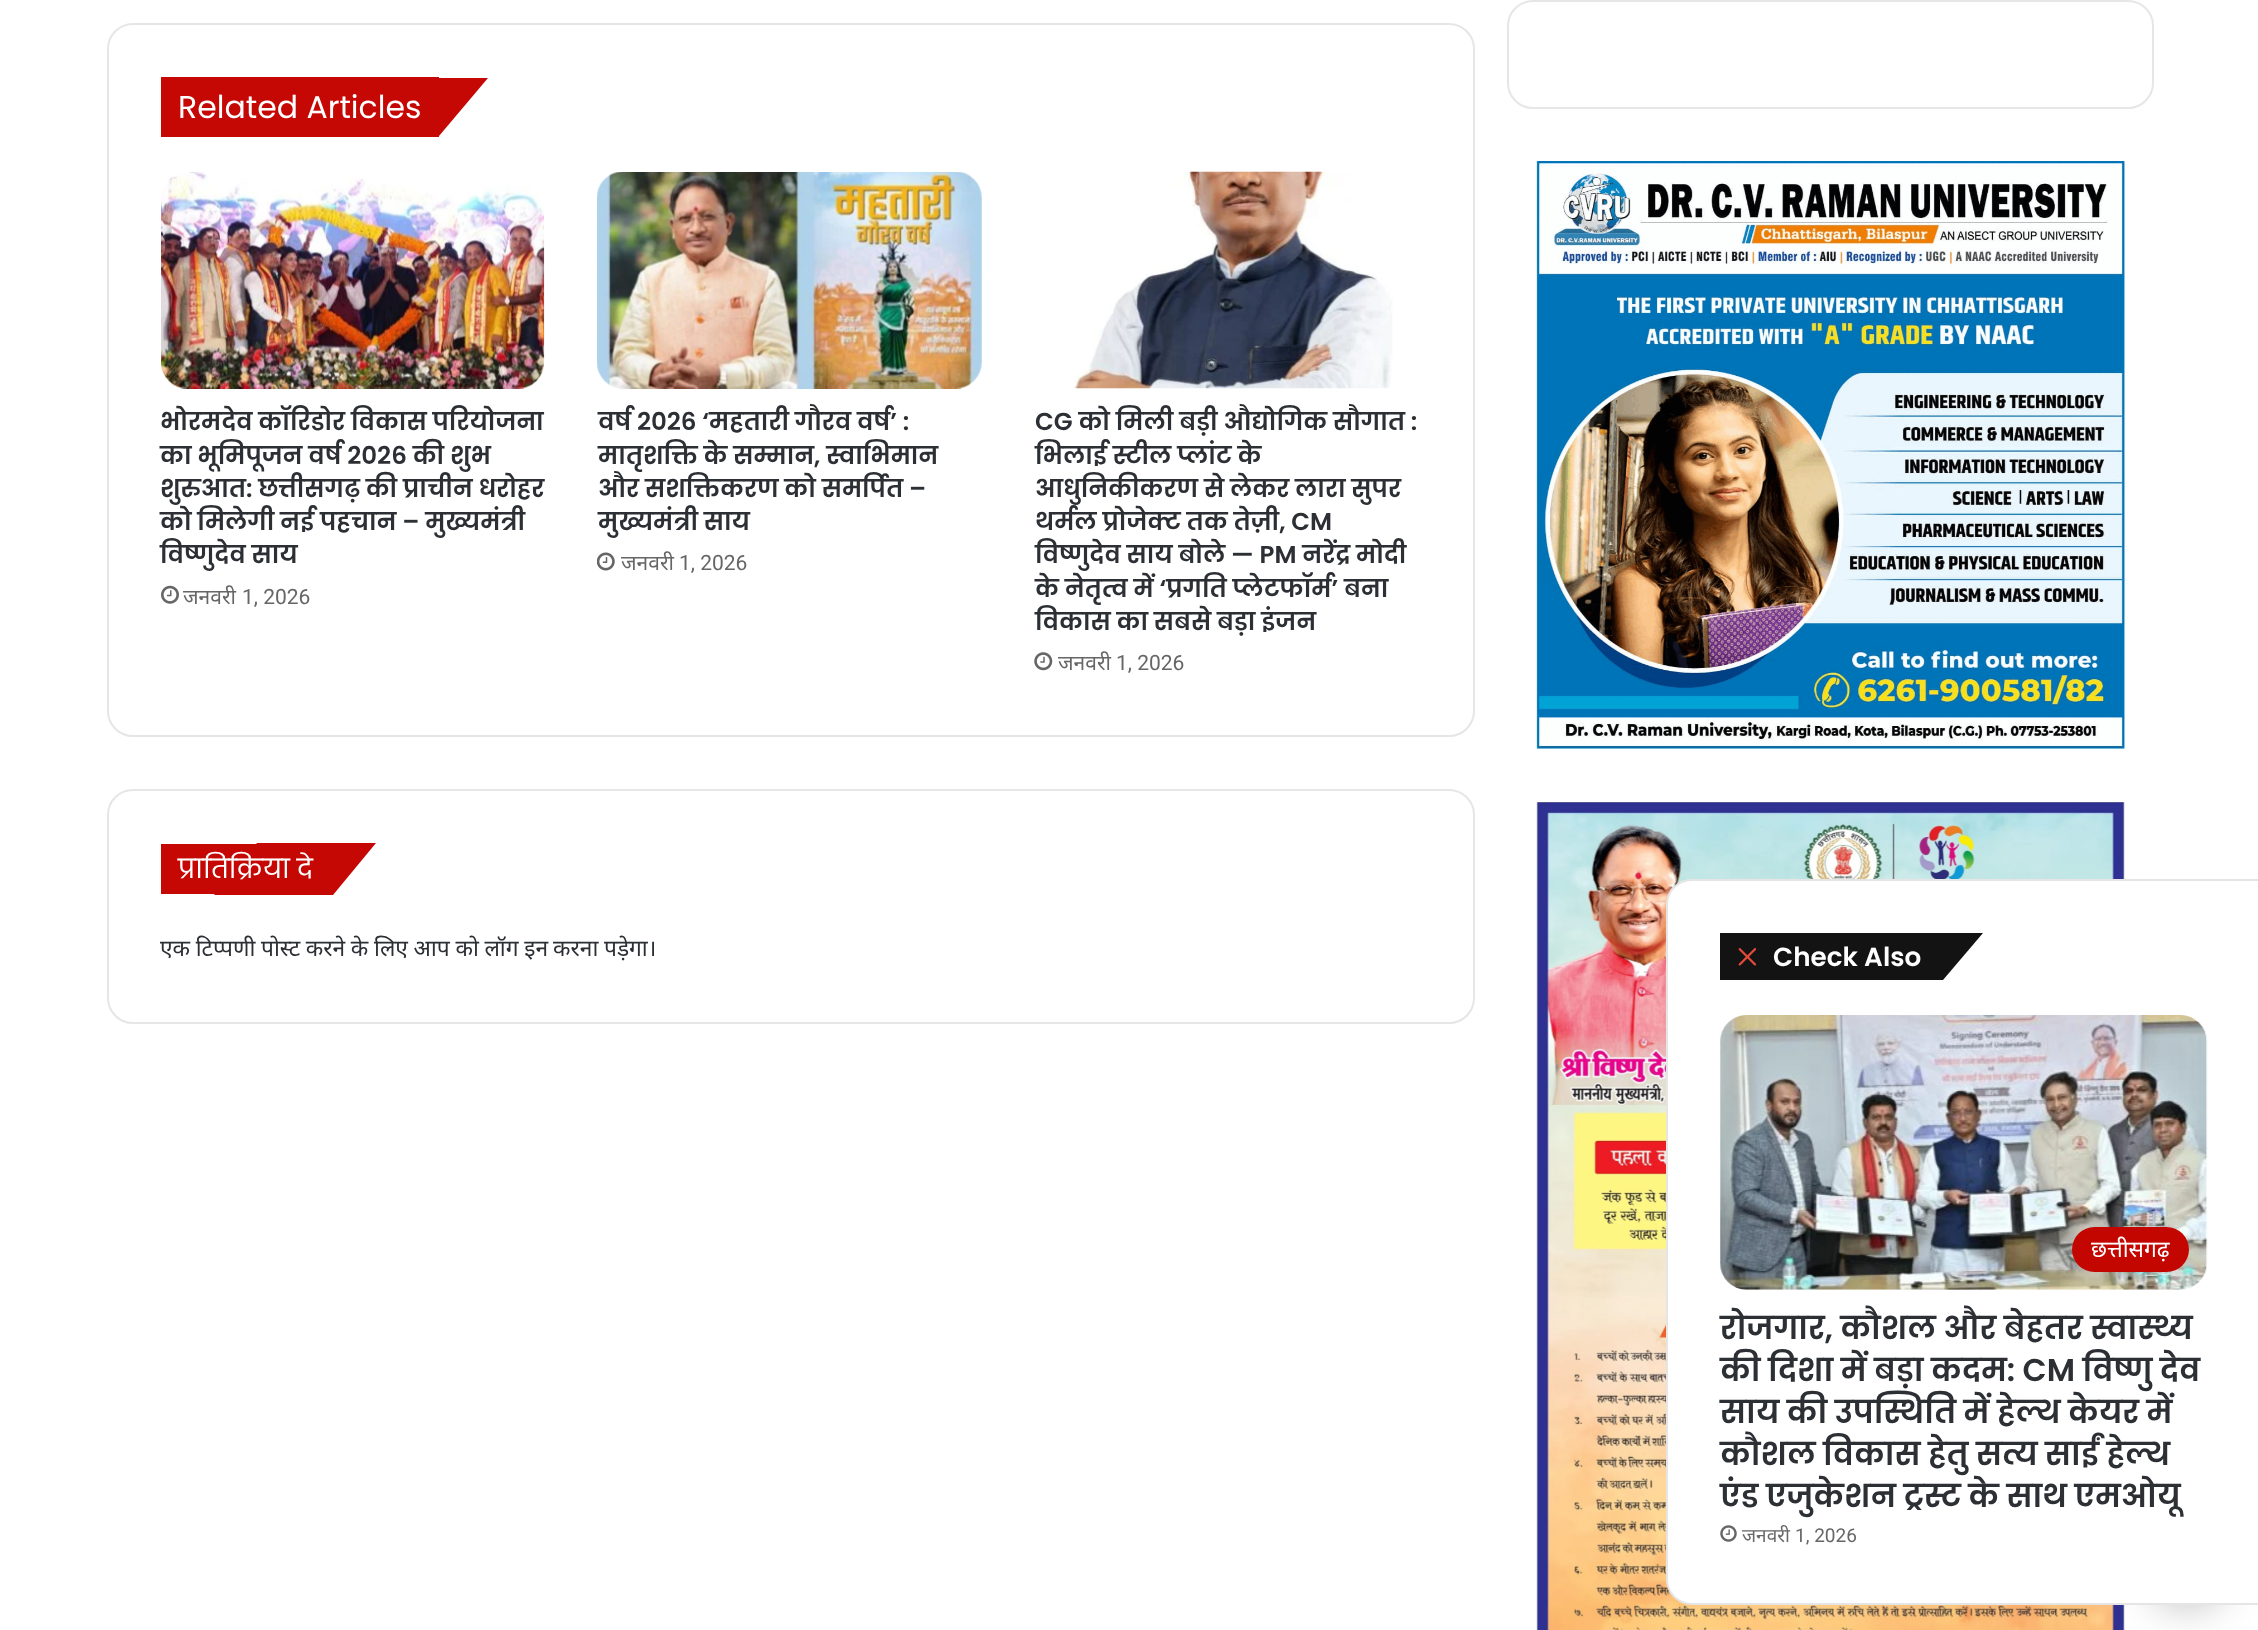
<!DOCTYPE html>
<meta charset="utf-8">
<style>body { margin: 0 } canvas { display: block }</style>
<canvas id="canvas" width="2258" height="1630"></canvas>
<script type="module">
  const canvas = document.getElementById("canvas");
  const ctx = canvas.getContext("2d");
  ctx.miterLimit = 4;
  ctx.fontKerning = "normal";
  async function loadImage(src) {
    const img = new Image();
    img.src = src;
    await img.decode();
    return img;
  }

  ctx.fillStyle = "#ffffff";
  ctx.fillRect(0, 0, 2258, 1630);
  ctx.beginPath();
  ctx.roundRect(108, 24, 1366, 712, 25);
  ctx.strokeStyle = "#e6e6e6";
  ctx.lineWidth = 2;
  ctx.stroke();
  ctx.fillStyle = "#c50803";
  ctx.fillRect(161, 77, 278, 60);
  ctx.beginPath();
  ctx.moveTo(293, 78);
  ctx.lineTo(488, 78);
  ctx.lineTo(439, 136);
  ctx.lineTo(244, 136);
  ctx.closePath();
  ctx.fill();
  ctx.font = "31.5px Poppins";
  ctx.fillStyle = "#ffffff";
  ctx.fillText("Related Articles", 178, 118);
  ctx.drawImage(await loadImage("img1.png"), 161, 172, 384, 217);
  ctx.font = "600 24.5px Poppins";
  ctx.fillStyle = "#2c2f34";
  ctx.fillText("भोरमदेव कॉरिडोर विकास परियोजना", 160, 430);
  ctx.fillText("का भूमिपूजन वर्ष 2026 की शुभ", 160, 464);
  ctx.fillText("शुरुआत: छत्तीसगढ़ की प्राचीन धरोहर", 160, 497);
  ctx.fillText("को मिलेगी नई पहचान – मुख्यमंत्री", 160, 530);
  ctx.fillText("विष्णुदेव साय", 160, 563);
  ctx.drawImage(await loadImage("img2.png"), 161, 585, 18, 19);
  ctx.font = "21px Noto Sans";
  ctx.fillStyle = "#666666";
  ctx.fillText("जनवरी", 183, 604);
  ctx.font = "21px Roboto";
  ctx.fillText("1, 2026", 242, 604);
  ctx.drawImage(await loadImage("img3.png"), 597, 172, 385, 217);
  ctx.font = "600 24.5px Poppins";
  ctx.fillStyle = "#2c2f34";
  ctx.fillText("वर्ष 2026 ‘महतारी गौरव वर्ष’ :", 598, 430);
  ctx.fillText("मातृशक्ति के सम्मान, स्वाभिमान", 598, 464);
  ctx.fillText("और सशक्तिकरण को समर्पित –", 598, 497);
  ctx.fillText("मुख्यमंत्री साय", 598, 530);
  ctx.drawImage(await loadImage("img4.png"), 597, 552, 18, 19);
  ctx.font = "21px Noto Sans";
  ctx.fillStyle = "#666666";
  ctx.fillText("जनवरी", 621, 570);
  ctx.font = "21px Roboto";
  ctx.fillText("1, 2026", 679, 570);
  ctx.drawImage(await loadImage("img5.png"), 1074, 171, 319, 218);
  ctx.font = "600 24.5px Poppins";
  ctx.fillStyle = "#2c2f34";
  ctx.fillText("CG को मिली बड़ी औद्योगिक सौगात :", 1035, 430);
  ctx.fillText("भिलाई स्टील प्लांट के", 1035, 464);
  ctx.fillText("आधुनिकीकरण से लेकर लारा सुपर", 1035, 497);
  ctx.fillText("थर्मल प्रोजेक्ट तक तेज़ी, CM", 1035, 530);
  ctx.fillText("विष्णुदेव साय बोले — PM नरेंद्र मोदी", 1035, 563);
  ctx.fillText("के नेतृत्व में ‘प्रगति प्लेटफॉर्म’ बना", 1035, 597);
  ctx.fillText("विकास का सबसे बड़ा इंजन", 1035, 630);
  ctx.drawImage(await loadImage("img6.png"), 1034, 652, 19, 19);
  ctx.font = "21px Noto Sans";
  ctx.fillStyle = "#666666";
  ctx.fillText("जनवरी", 1058, 670);
  ctx.font = "21px Roboto";
  ctx.fillText("1, 2026", 1116, 670);
  ctx.beginPath();
  ctx.roundRect(108, 790, 1366, 233, 25);
  ctx.stroke();
  ctx.fillStyle = "#c50803";
  ctx.fillRect(161, 844, 96, 50);
  ctx.beginPath();
  ctx.moveTo(257, 843);
  ctx.lineTo(376, 843);
  ctx.lineTo(333, 895);
  ctx.lineTo(214, 895);
  ctx.closePath();
  ctx.fill();
  ctx.font = "26.25px Poppins";
  ctx.fillStyle = "#ffffff";
  ctx.fillText("प्रातिक्रिया दे", 178, 878);
  ctx.wordSpacing = "-0.25px";
  ctx.font = "22.75px Noto Sans";
  ctx.fillStyle = "#2c2f34";
  ctx.fillText("एक टिप्पणी पोस्ट करने के लिए आप को लॉग इन", 160, 956);
  ctx.fillText("करना पड़ेगा।", 553, 956);
  ctx.beginPath();
  ctx.roundRect(1508, 1, 645, 107, 25);
  ctx.stroke();
  ctx.drawImage(await loadImage("img7.png"), 1536, 161, 589, 588);
  ctx.drawImage(await loadImage("img8.png"), 1536, 802, 589, 828);
  ctx.fillStyle = "rgba(0, 0, 0, 0.3)";
  ctx.filter = "blur(22px)";
  ctx.beginPath();
  ctx.roundRect(2151, 1531, 73, 74, 36.5);
  ctx.fill();
  ctx.filter = "none";
  ctx.fillStyle = "#ffffff";
  ctx.beginPath();
  ctx.moveTo(1692, 879);
  ctx.lineTo(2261, 879);
  ctx.lineTo(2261, 1605);
  ctx.lineTo(1692, 1605);
  ctx.bezierCurveTo(1677.5, 1605, 1666, 1593.5, 1666, 1579);
  ctx.lineTo(1666, 905);
  ctx.bezierCurveTo(1666, 890.5, 1677.5, 879, 1692, 879);
  ctx.closePath();
  ctx.fill();
  ctx.beginPath();
  ctx.moveTo(1692, 880);
  ctx.lineTo(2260, 880);
  ctx.lineTo(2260, 1604);
  ctx.lineTo(1692, 1604);
  ctx.bezierCurveTo(1678, 1604, 1667, 1593, 1667, 1579);
  ctx.lineTo(1667, 905);
  ctx.bezierCurveTo(1667, 891, 1678, 880, 1692, 880);
  ctx.closePath();
  ctx.strokeStyle = "rgba(0, 0, 0, 0.1)";
  ctx.stroke();
  ctx.fillStyle = "#131313";
  ctx.fillRect(1720, 933, 110, 47);
  ctx.beginPath();
  ctx.moveTo(1830, 933);
  ctx.lineTo(1983, 933);
  ctx.lineTo(1943, 980);
  ctx.lineTo(1790, 980);
  ctx.closePath();
  ctx.fill();
  ctx.drawImage(await loadImage("img9.png"), 1738, 948, 19, 18);
  ctx.wordSpacing = "0px";
  ctx.font = "600 26.25px Poppins";
  ctx.fillStyle = "#ffffff";
  ctx.fillText("Check Also", 1773, 966);
  ctx.drawImage(await loadImage("img10.png"), 1720, 1015, 488, 275);
  ctx.fillStyle = "#c40600";
  ctx.beginPath();
  ctx.roundRect(2072, 1227, 117, 45, 22.5);
  ctx.fill();
  ctx.font = "22.75px Noto Sans";
  ctx.fillStyle = "#ffffff";
  ctx.fillText("छत्तीसगढ़", 2091, 1257);
  ctx.font = "600 31.5px Poppins";
  ctx.fillStyle = "#2c2f34";
  ctx.fillText("रोजगार, कौशल और बेहतर स्वास्थ्य", 1720, 1339);
  ctx.fillText("की दिशा में बड़ा कदम: CM विष्णु देव", 1720, 1381);
  ctx.fillText("साय की उपस्थिति में हेल्थ केयर में", 1720, 1423);
  ctx.fillText("कौशल विकास हेतु सत्य साईं हेल्थ", 1720, 1465);
  ctx.fillText("एंड एजुकेशन ट्रस्ट के साथ एमओयू", 1720, 1507);
  ctx.drawImage(await loadImage("img11.png"), 1720, 1525, 17, 17);
  ctx.font = "19px Noto Sans";
  ctx.fillStyle = "#666666";
  ctx.fillText("जनवरी", 1742, 1542);
  ctx.font = "19px Roboto";
  ctx.fillText("1, 2026", 1795, 1542);
</script>
